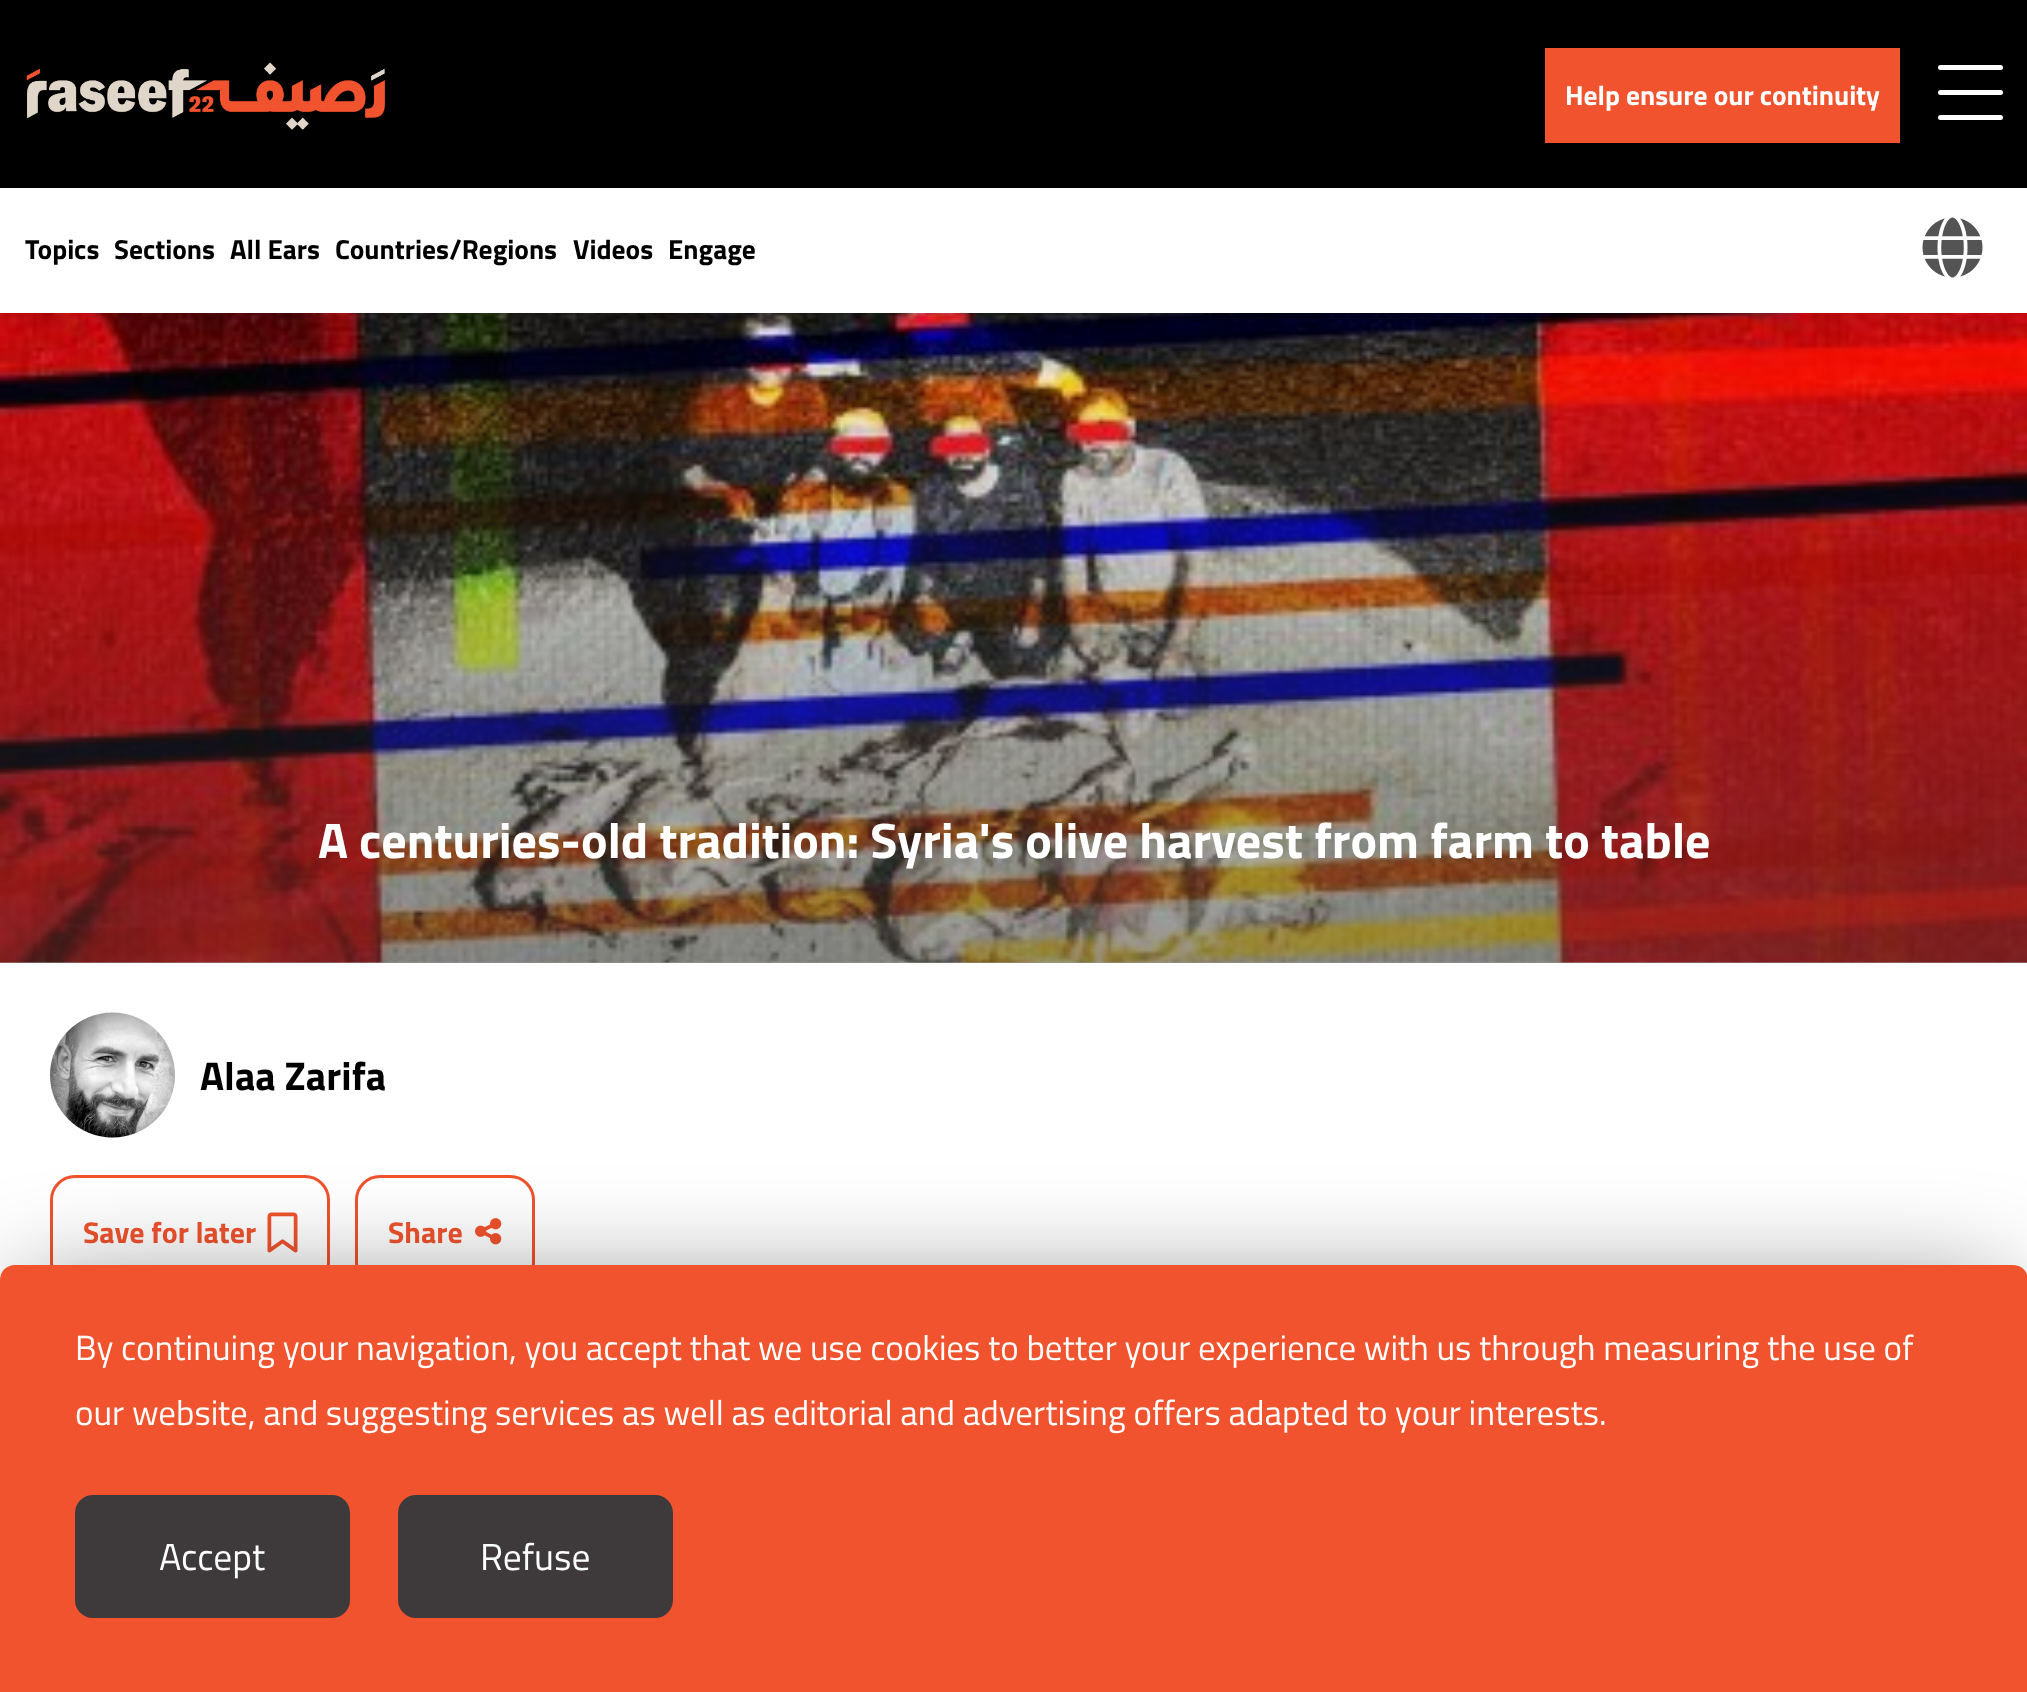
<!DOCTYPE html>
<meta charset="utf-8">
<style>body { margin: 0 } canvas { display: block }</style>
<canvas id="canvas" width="2027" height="1692"></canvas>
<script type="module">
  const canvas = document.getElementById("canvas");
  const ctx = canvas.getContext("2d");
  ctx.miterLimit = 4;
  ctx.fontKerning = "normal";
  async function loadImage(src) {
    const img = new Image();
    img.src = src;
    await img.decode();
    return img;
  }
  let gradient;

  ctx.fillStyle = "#ffffff";
  ctx.fillRect(0, 0, 2027, 1692);
  ctx.drawImage(await loadImage("img3.png"), 0, 313, 2027, 650);
  gradient = ctx.createLinearGradient(0, 313, 0, 963);
  gradient.addColorStop(0, "rgba(49, 49, 49, 0)");
  gradient.addColorStop(1, "rgba(49, 49, 49, 0.5)");
  ctx.fillStyle = gradient;
  ctx.fillRect(0, 341, 2027, 622);
  ctx.fillStyle = "rgba(0, 0, 0, 0.08)";
  ctx.filter = "blur(25px)";
  ctx.beginPath();
  ctx.rect(0, 8, 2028, 312);
  ctx.fill();
  ctx.filter = "none";
  ctx.fillStyle = "#000000";
  ctx.fillRect(0, 0, 2027, 188);
  ctx.drawImage(await loadImage("img1.png"), 26, 62, 359, 68);
  ctx.fillStyle = "#f0532d";
  ctx.fillRect(1545, 48, 355, 95);
  ctx.font = "bold 27.5px Cairo";
  ctx.fillStyle = "#ffffff";
  ctx.fillText("Help ensure our continuity", 1565, 105);
  ctx.beginPath();
  ctx.roundRect(1938, 90, 65, 5, 2.5);
  ctx.fill();
  ctx.beginPath();
  ctx.roundRect(1938, 65, 65, 5, 2.5);
  ctx.fill();
  ctx.beginPath();
  ctx.roundRect(1938, 115, 65, 5, 2.5);
  ctx.fill();
  ctx.fillRect(0, 188, 2027, 125);
  ctx.fillStyle = "#000000";
  ctx.fillText("Topics", 25, 259);
  ctx.fillText("Sections", 114, 259);
  ctx.fillText("All Ears", 230, 259);
  ctx.fillText("Countries/Regions", 335, 259);
  ctx.fillText("Videos", 573, 259);
  ctx.fillText("Engage", 668, 259);
  ctx.drawImage(await loadImage("img2.png"), 1922, 217, 61, 61);
  ctx.font = "bold 50px Cairo";
  ctx.fillStyle = "#ffffff";
  ctx.fillText("A centuries-old tradition: Syria's olive harvest from farm to table", 318, 858);
  ctx.drawImage(await loadImage("img4.png"), 50, 1012, 125, 126);
  ctx.font = "bold 40px Cairo";
  ctx.fillStyle = "#000000";
  ctx.fillText("Alaa Zarifa", 200, 1090);
  ctx.beginPath();
  ctx.roundRect(51.5, 1176.5, 277, 110, 23.5);
  ctx.strokeStyle = "#f0532d";
  ctx.lineWidth = 3;
  ctx.stroke();
  ctx.font = "bold 30px Cairo";
  ctx.fillStyle = "#f0532d";
  ctx.fillText("Save for later", 83, 1243);
  ctx.drawImage(await loadImage("img5.png"), 267, 1212, 31, 41);
  ctx.beginPath();
  ctx.roundRect(356.5, 1176.5, 177, 110, 23.5);
  ctx.stroke();
  ctx.fillText("Share", 388, 1243);
  ctx.drawImage(await loadImage("img6.png"), 475, 1218, 27, 27);
  ctx.fillStyle = "rgba(0, 0, 0, 0.5)";
  ctx.filter = "blur(54px)";
  ctx.beginPath();
  ctx.rect(25, 1290, 1978, 378);
  ctx.fill();
  ctx.filter = "none";
  ctx.fillStyle = "#f0532d";
  ctx.beginPath();
  ctx.moveTo(15, 1265);
  ctx.lineTo(2013, 1265);
  ctx.bezierCurveTo(2021.5, 1265, 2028, 1271.5, 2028, 1280);
  ctx.lineTo(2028, 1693);
  ctx.lineTo(0, 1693);
  ctx.lineTo(0, 1280);
  ctx.bezierCurveTo(0, 1271.5, 6.5, 1265, 15, 1265);
  ctx.closePath();
  ctx.fill();
  ctx.font = "35px Cairo";
  ctx.fillStyle = "#ffffff";
  ctx.fillText("By continuing your navigation, you accept that we use cookies to better your experience with us through measuring the use of", 75, 1360);
  ctx.fillText("our website, and suggesting services as well as editorial and advertising offers adapted to your interests.", 75, 1425);
  ctx.fillStyle = "#3e3a3b";
  ctx.beginPath();
  ctx.roundRect(75, 1495, 275, 123, 18);
  ctx.fill();
  ctx.font = "37.5px Cairo";
  ctx.fillStyle = "#ffffff";
  ctx.fillText("Accept", 159, 1570);
  ctx.fillStyle = "#3e3a3b";
  ctx.beginPath();
  ctx.roundRect(398, 1495, 275, 123, 18);
  ctx.fill();
  ctx.fillStyle = "#ffffff";
  ctx.fillText("Refuse", 480, 1570);
</script>
